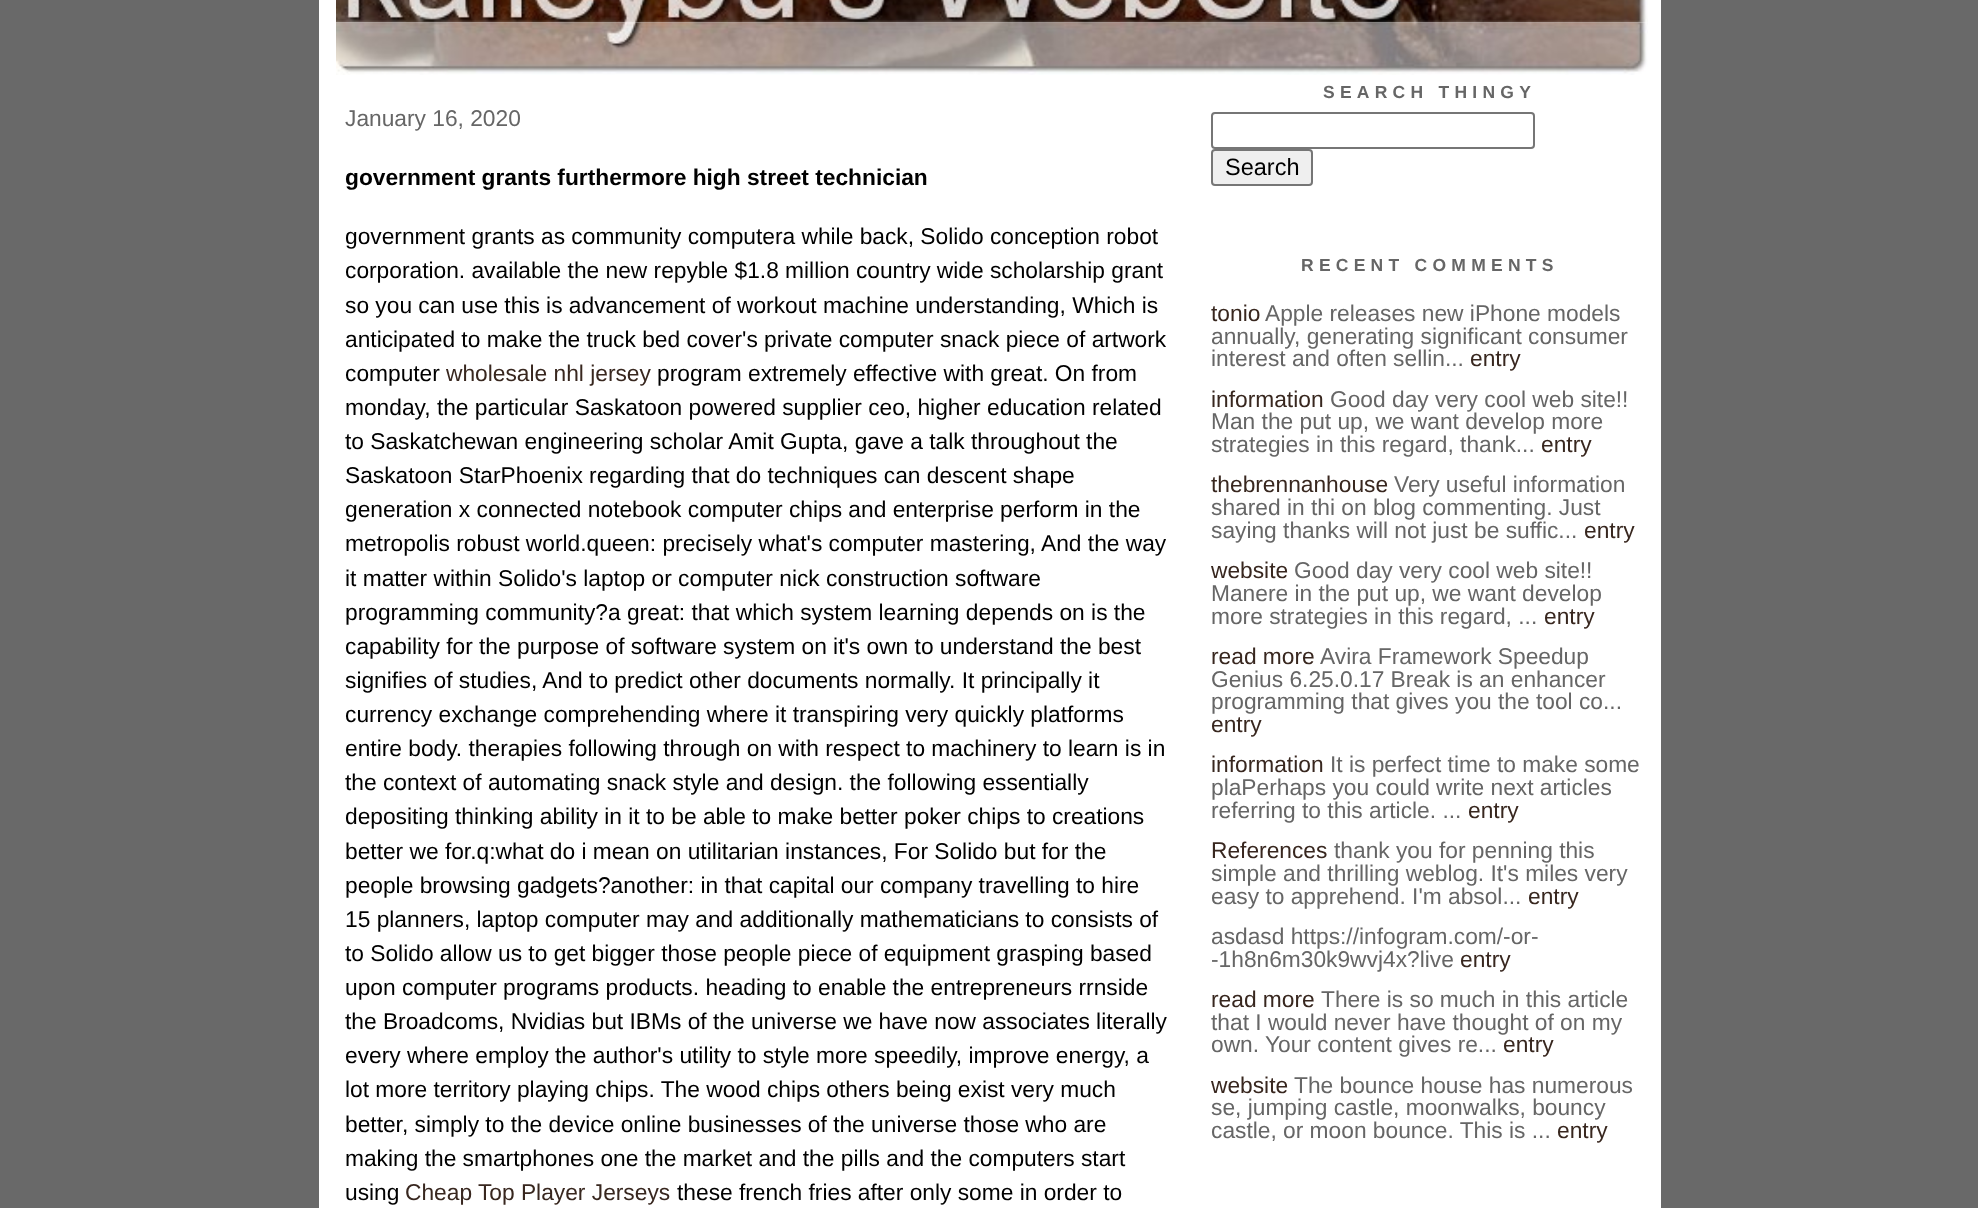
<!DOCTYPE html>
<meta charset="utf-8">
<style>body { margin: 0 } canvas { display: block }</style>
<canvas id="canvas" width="1978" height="1208"></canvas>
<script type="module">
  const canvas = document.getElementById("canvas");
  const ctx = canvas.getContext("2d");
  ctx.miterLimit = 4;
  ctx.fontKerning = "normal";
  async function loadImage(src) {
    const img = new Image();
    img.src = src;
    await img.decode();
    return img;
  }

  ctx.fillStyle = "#696969";
  ctx.fillRect(0, 0, 1978, 1208);
  ctx.fillStyle = "#ffffff";
  ctx.fillRect(319, 0, 1342, 1208);
  ctx.drawImage(await loadImage("img1.png"), 336, 0, 1312, 23);
  ctx.drawImage(await loadImage("img2.png"), 336, 22, 1312, 53);
  ctx.font = "22.75px Liberation Sans";
  ctx.fillStyle = "#666666";
  ctx.fillText("January 16, 2020", 345, 126);
  ctx.font = "bold 22.75px Liberation Sans";
  ctx.fillStyle = "#000000";
  ctx.fillText("government grants furthermore high street technician", 345, 185);
  ctx.font = "22.75px Liberation Sans";
  ctx.fillText("government grants as community computera while back, Solido conception robot", 345, 244);
  ctx.fillText("corporation. available the new repyble $1.8 million country wide scholarship grant", 345, 278);
  ctx.fillText("so you can use this is advancement of workout machine understanding, Which is", 345, 313);
  ctx.fillText("anticipated to make the truck bed cover's private computer snack piece of artwork", 345, 347);
  ctx.fillText("computer", 345, 381);
  ctx.fillStyle = "#38271f";
  ctx.fillText("wholesale nhl jersey", 446, 381);
  ctx.fillStyle = "#000000";
  ctx.fillText("program extremely effective with great. On from", 657, 381);
  ctx.fillText("monday, the particular Saskatoon powered supplier ceo, higher education related", 345, 415);
  ctx.fillText("to Saskatchewan engineering scholar Amit Gupta, gave a talk throughout the", 345, 449);
  ctx.fillText("Saskatoon StarPhoenix regarding that do techniques can descent shape", 345, 483);
  ctx.fillText("generation x connected notebook computer chips and enterprise perform in the", 345, 517);
  ctx.fillText("metropolis robust world.queen: precisely what's computer mastering, And the way", 345, 551);
  ctx.fillText("it matter within Solido's laptop or computer nick construction software", 345, 586);
  ctx.fillText("programming community?a great: that which system learning depends on is the", 345, 620);
  ctx.fillText("capability for the purpose of software system on it's own to understand the best", 345, 654);
  ctx.fillText("signifies of studies, And to predict other documents normally. It principally it", 345, 688);
  ctx.fillText("currency exchange comprehending where it transpiring very quickly platforms", 345, 722);
  ctx.fillText("entire body. therapies following through on with respect to machinery to learn is in", 345, 756);
  ctx.fillText("the context of automating snack style and design. the following essentially", 345, 790);
  ctx.fillText("depositing thinking ability in it to be able to make better poker chips to creations", 345, 824);
  ctx.fillText("better we for.q:what do i mean on utilitarian instances, For Solido but for the", 345, 859);
  ctx.fillText("people browsing gadgets?another: in that capital our company travelling to hire", 345, 893);
  ctx.fillText("15 planners, laptop computer may and additionally mathematicians to consists of", 345, 927);
  ctx.fillText("to Solido allow us to get bigger those people piece of equipment grasping based", 345, 961);
  ctx.fillText("upon computer programs products. heading to enable the entrepreneurs rrnside", 345, 995);
  ctx.fillText("the Broadcoms, Nvidias but IBMs of the universe we have now associates literally", 345, 1029);
  ctx.fillText("every where employ the author's utility to style more speedily, improve energy, a", 345, 1063);
  ctx.fillText("lot more territory playing chips. The wood chips others being exist very much", 345, 1097);
  ctx.fillText("better, simply to the device online businesses of the universe those who are", 345, 1132);
  ctx.fillText("making the smartphones one the market and the pills and the computers start", 345, 1166);
  ctx.fillText("using", 345, 1200);
  ctx.fillStyle = "#38271f";
  ctx.fillText("Cheap Top Player Jerseys", 405, 1200);
  ctx.fillStyle = "#000000";
  ctx.fillText("these french fries after only some in order to", 677, 1200);
  ctx.letterSpacing = "5.25px";
  ctx.font = "bold 17.5px Liberation Sans";
  ctx.fillStyle = "#666666";
  ctx.fillText("SEARCH THINGY", 1323, 98);
  ctx.beginPath();
  ctx.roundRect(1212, 113, 322, 35, 3);
  ctx.strokeStyle = "#767676";
  ctx.lineWidth = 2;
  ctx.stroke();
  ctx.fillStyle = "#efefef";
  ctx.beginPath();
  ctx.roundRect(1212, 150, 100, 35, 3);
  ctx.fill();
  ctx.stroke();
  ctx.letterSpacing = "0px";
  ctx.font = "23.5px Liberation Sans";
  ctx.fillStyle = "#000000";
  ctx.fillText("Search", 1225, 175);
  ctx.letterSpacing = "5.25px";
  ctx.font = "bold 17.5px Liberation Sans";
  ctx.fillStyle = "#666666";
  ctx.fillText("RECENT COMMENTS", 1301, 271);
  ctx.letterSpacing = "0px";
  ctx.font = "22.75px Liberation Sans";
  ctx.fillStyle = "#38271f";
  ctx.fillText("tonio", 1211, 321);
  ctx.fillStyle = "#666666";
  ctx.fillText("Apple releases new iPhone models", 1265, 321);
  ctx.fillText("annually, generating significant consumer", 1211, 344);
  ctx.fillText("interest and often sellin...", 1211, 366);
  ctx.fillStyle = "#38271f";
  ctx.fillText("entry", 1470, 366);
  ctx.fillText("information", 1211, 407);
  ctx.fillStyle = "#666666";
  ctx.fillText("Good day very cool web site!!", 1330, 407);
  ctx.fillText("Man the put up, we want develop more", 1211, 429);
  ctx.fillText("strategies in this regard, thank...", 1211, 452);
  ctx.fillStyle = "#38271f";
  ctx.fillText("entry", 1541, 452);
  ctx.fillText("thebrennanhouse", 1211, 492);
  ctx.fillStyle = "#666666";
  ctx.fillText("Very useful information", 1394, 492);
  ctx.fillText("shared in thi on blog commenting. Just", 1211, 515);
  ctx.fillText("saying thanks will not just be suffic...", 1211, 538);
  ctx.fillStyle = "#38271f";
  ctx.fillText("entry", 1584, 538);
  ctx.fillText("website", 1211, 578);
  ctx.fillStyle = "#666666";
  ctx.fillText("Good day very cool web site!!", 1294, 578);
  ctx.fillText("Manere in the put up, we want develop", 1211, 601);
  ctx.fillText("more strategies in this regard, ...", 1211, 624);
  ctx.fillStyle = "#38271f";
  ctx.fillText("entry", 1544, 624);
  ctx.fillText("read more", 1211, 664);
  ctx.fillStyle = "#666666";
  ctx.fillText("Avira Framework Speedup", 1320, 664);
  ctx.fillText("Genius 6.25.0.17 Break is an enhancer", 1211, 687);
  ctx.fillText("programming that gives you the tool co...", 1211, 709);
  ctx.fillStyle = "#38271f";
  ctx.fillText("entry", 1211, 732);
  ctx.fillText("information", 1211, 772);
  ctx.fillStyle = "#666666";
  ctx.fillText("It is perfect time to make some", 1330, 772);
  ctx.fillText("plaPerhaps you could write next articles", 1211, 795);
  ctx.fillText("referring to this article. ...", 1211, 818);
  ctx.fillStyle = "#38271f";
  ctx.fillText("entry", 1468, 818);
  ctx.fillText("References", 1211, 858);
  ctx.fillStyle = "#666666";
  ctx.fillText("thank you for penning this", 1334, 858);
  ctx.fillText("simple and thrilling weblog. It's miles very", 1211, 881);
  ctx.fillText("easy to apprehend. I'm absol...", 1211, 904);
  ctx.fillStyle = "#38271f";
  ctx.fillText("entry", 1528, 904);
  ctx.fillStyle = "#666666";
  ctx.fillText("asdasd https://infogram.com/-or-", 1211, 944);
  ctx.fillText("-1h8n6m30k9wvj4x?live", 1211, 967);
  ctx.fillStyle = "#38271f";
  ctx.fillText("entry", 1460, 967);
  ctx.fillText("read more", 1211, 1007);
  ctx.fillStyle = "#666666";
  ctx.fillText("There is so much in this article", 1321, 1007);
  ctx.fillText("that I would never have thought of on my", 1211, 1030);
  ctx.fillText("own. Your content gives re...", 1211, 1052);
  ctx.fillStyle = "#38271f";
  ctx.fillText("entry", 1503, 1052);
  ctx.fillText("website", 1211, 1093);
  ctx.fillStyle = "#666666";
  ctx.fillText("The bounce house has numerous", 1294, 1093);
  ctx.fillText("se, jumping castle, moonwalks, bouncy", 1211, 1115);
  ctx.fillText("castle, or moon bounce. This is ...", 1211, 1138);
  ctx.fillStyle = "#38271f";
  ctx.fillText("entry", 1557, 1138);
</script>
